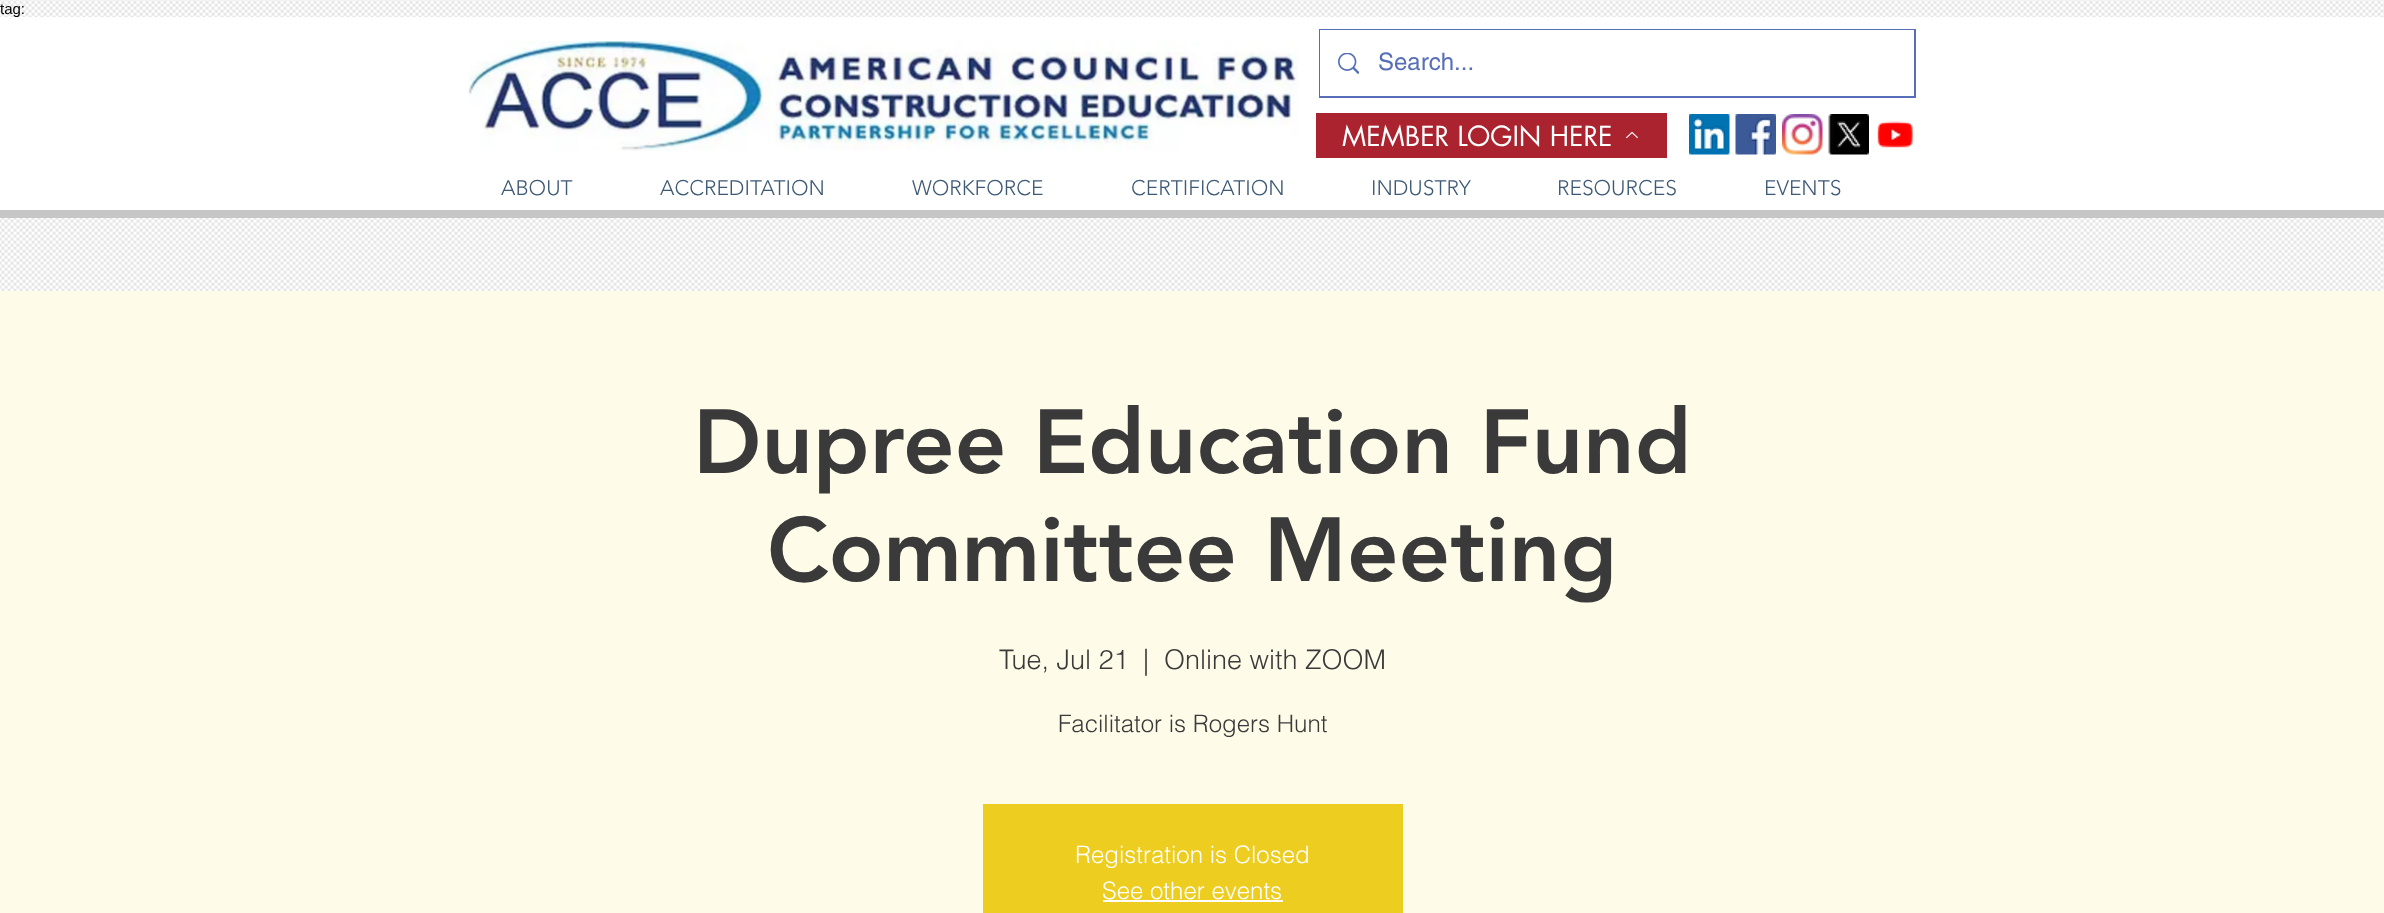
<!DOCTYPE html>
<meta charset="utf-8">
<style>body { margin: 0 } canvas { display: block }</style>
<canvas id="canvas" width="2384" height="913"></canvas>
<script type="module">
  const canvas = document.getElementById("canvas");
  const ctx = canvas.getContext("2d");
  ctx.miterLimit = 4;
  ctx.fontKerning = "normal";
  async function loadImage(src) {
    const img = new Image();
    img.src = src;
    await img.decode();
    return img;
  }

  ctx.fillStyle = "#ffffff";
  ctx.fillRect(0, 0, 2384, 913);
  ctx.font = "15px Liberation Sans";
  ctx.fillStyle = "#000000";
  ctx.fillText("tag:", 0, 14);
  ctx.drawImage(await loadImage("img1.png"), 0, 0, 2384, 291);
  ctx.fillStyle = "#ffffff";
  ctx.fillRect(0, 17, 2384, 193);
  ctx.fillStyle = "#c6c6c6";
  ctx.fillRect(0, 210, 2384, 8);
  ctx.drawImage(await loadImage("img2.png"), 468, 41, 830, 110);
  ctx.strokeStyle = "#566fb8";
  ctx.lineWidth = 2;
  ctx.strokeRect(1320, 30, 595, 67);
  ctx.fillStyle = "#ffffff";
  ctx.fillRect(1320, 30, 594, 66);
  ctx.drawImage(await loadImage("img3.png"), 1338, 53, 21, 21);
  ctx.font = "24px helvetica";
  ctx.fillStyle = "#566fb8";
  ctx.fillText("Search...", 1378, 70);
  ctx.fillStyle = "#aa232f";
  ctx.fillRect(1316, 113, 351, 45);
  ctx.font = "27px futura";
  ctx.fillStyle = "#ffffff";
  ctx.fillText("MEMBER LOGIN HERE", 1342, 146);
  ctx.drawImage(await loadImage("img4.png"), 1626, 131, 12, 8);
  ctx.drawImage(await loadImage("img5.png"), 1689, 114, 41, 41);
  ctx.drawImage(await loadImage("img6.png"), 1735, 114, 41, 41);
  ctx.drawImage(await loadImage("img7.png"), 1782, 114, 41, 41);
  ctx.drawImage(await loadImage("img8.png"), 1828, 114, 41, 41);
  ctx.drawImage(await loadImage("img9.png"), 1877, 121, 36, 27);
  ctx.font = "300 21px 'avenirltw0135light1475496'";
  ctx.fillStyle = "#3d5975";
  ctx.fillText("ABOUT", 501, 195);
  ctx.fillText("ACCREDITATION", 660, 195);
  ctx.fillText("WORKFORCE", 912, 195);
  ctx.fillText("CERTIFICATION", 1131, 195);
  ctx.fillText("INDUSTRY", 1371, 195);
  ctx.fillText("RESOURCES", 1557, 195);
  ctx.fillText("EVENTS", 1764, 195);
  ctx.fillStyle = "#fefbe9";
  ctx.fillRect(0, 291, 2384, 622);
  ctx.font = "900 90px 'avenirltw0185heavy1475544'";
  ctx.fillStyle = "#3b3a3a";
  ctx.fillText("Dupree Education Fund", 693, 473);
  ctx.fillText("Committee Meeting", 767, 581);
  ctx.font = "300 27px helvetica";
  ctx.fillText("Tue, Jul 21", 999, 669);
  ctx.fillText("|", 1143, 669);
  ctx.fillText("Online with ZOOM", 1164, 669);
  ctx.font = "300 24px helvetica";
  ctx.fillText("Facilitator is Rogers Hunt", 1058, 732);
  ctx.fillStyle = "#edcd1f";
  ctx.fillRect(983, 804, 420, 109);
  ctx.fillStyle = "#ffffff";
  ctx.fillText("Registration is Closed", 1075, 863);
  ctx.fillText("See other events", 1102, 899);
  ctx.fillRect(1103, 900, 180, 2);
</script>
